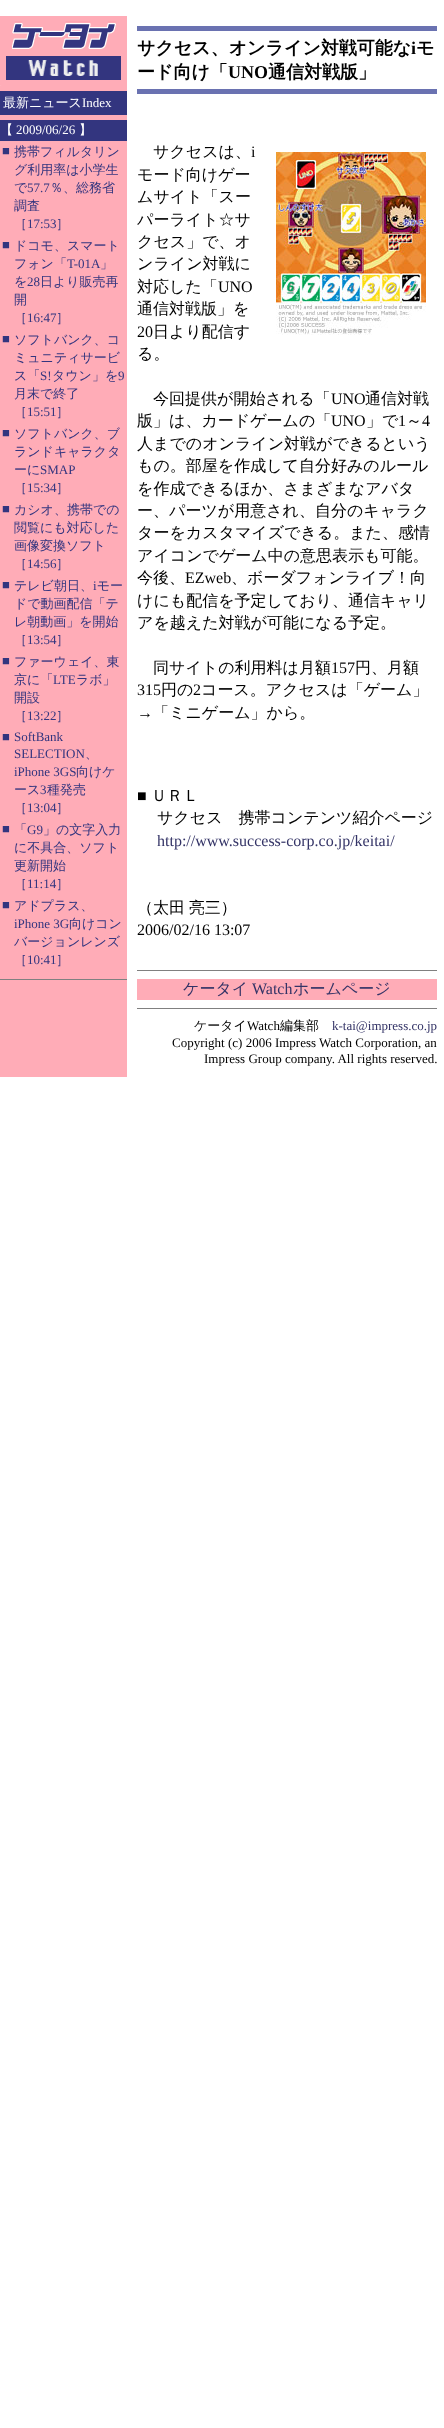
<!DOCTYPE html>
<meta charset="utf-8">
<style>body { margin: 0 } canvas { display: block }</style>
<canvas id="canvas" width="444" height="2428"></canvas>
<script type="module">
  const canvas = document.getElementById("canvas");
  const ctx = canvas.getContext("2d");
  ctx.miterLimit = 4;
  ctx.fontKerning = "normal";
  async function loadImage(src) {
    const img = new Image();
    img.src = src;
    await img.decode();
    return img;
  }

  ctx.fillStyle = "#ffffff";
  ctx.fillRect(0, 0, 444, 2428);
  ctx.fillStyle = "#ffacb7";
  ctx.fillRect(0, 16, 127, 1061);
  ctx.drawImage(await loadImage("img1.png"), 0, 21, 121, 65);
  ctx.fillStyle = "#33357f";
  ctx.fillRect(0, 91, 127, 24);
  ctx.font = "500 13px WenQuanYi Zen Hei";
  ctx.fillStyle = "#ffffff";
  ctx.fillText("最新ニュース", 3, 107);
  ctx.font = "13px Liberation Serif";
  ctx.fillText("Index", 82, 107);
  ctx.fillStyle = "#33357f";
  ctx.fillRect(0, 120, 127, 21);
  ctx.font = "500 13px WenQuanYi Zen Hei";
  ctx.fillStyle = "#ffffff";
  ctx.fillText("【", 0, 134);
  ctx.font = "13px Liberation Serif";
  ctx.fillText("2009/06/26", 16, 134);
  ctx.font = "500 13px WenQuanYi Zen Hei";
  ctx.fillText("】", 79, 134);
  ctx.font = "13px Liberation Serif";
  ctx.fillStyle = "#33357f";
  ctx.fillText("■", 2, 155);
  ctx.font = "500 13px WenQuanYi Zen Hei";
  ctx.fillText("携帯フィルタリン", 14, 156);
  ctx.fillText("グ利用率は小学生", 14, 174);
  ctx.fillText("で", 14, 192);
  ctx.font = "13px Liberation Serif";
  ctx.fillText("57.7", 27, 192);
  ctx.font = "500 13px WenQuanYi Zen Hei";
  ctx.fillText("％、総務省", 50, 192);
  ctx.fillText("調査", 14, 210);
  ctx.fillText("［", 14, 228);
  ctx.font = "13px Liberation Serif";
  ctx.fillText("17:53", 27, 228);
  ctx.font = "500 13px WenQuanYi Zen Hei";
  ctx.fillText("］", 56, 228);
  ctx.font = "13px Liberation Serif";
  ctx.fillText("■", 2, 249);
  ctx.font = "500 13px WenQuanYi Zen Hei";
  ctx.fillText("ドコモ、スマート", 14, 250);
  ctx.fillText("フォン「", 14, 268);
  ctx.font = "13px Liberation Serif";
  ctx.fillText("T-01A", 67, 268);
  ctx.font = "500 13px WenQuanYi Zen Hei";
  ctx.fillText("」", 100, 268);
  ctx.fillText("を", 14, 286);
  ctx.font = "13px Liberation Serif";
  ctx.fillText("28", 27, 286);
  ctx.font = "500 13px WenQuanYi Zen Hei";
  ctx.fillText("日より販売再", 40, 286);
  ctx.fillText("開", 14, 304);
  ctx.fillText("［", 14, 322);
  ctx.font = "13px Liberation Serif";
  ctx.fillText("16:47", 27, 322);
  ctx.font = "500 13px WenQuanYi Zen Hei";
  ctx.fillText("］", 56, 322);
  ctx.font = "13px Liberation Serif";
  ctx.fillText("■", 2, 343);
  ctx.font = "500 13px WenQuanYi Zen Hei";
  ctx.fillText("ソフトバンク、コ", 14, 344);
  ctx.fillText("ミュニティサービ", 14, 362);
  ctx.fillText("ス「", 14, 380);
  ctx.font = "13px Liberation Serif";
  ctx.fillText("S!", 40, 380);
  ctx.font = "500 13px WenQuanYi Zen Hei";
  ctx.fillText("タウン」を", 52, 380);
  ctx.font = "13px Liberation Serif";
  ctx.fillText("9", 118, 380);
  ctx.font = "500 13px WenQuanYi Zen Hei";
  ctx.fillText("月末で終了", 14, 398);
  ctx.fillText("［", 14, 416);
  ctx.font = "13px Liberation Serif";
  ctx.fillText("15:51", 27, 416);
  ctx.font = "500 13px WenQuanYi Zen Hei";
  ctx.fillText("］", 56, 416);
  ctx.font = "13px Liberation Serif";
  ctx.fillText("■", 2, 437);
  ctx.font = "500 13px WenQuanYi Zen Hei";
  ctx.fillText("ソフトバンク、ブ", 14, 438);
  ctx.fillText("ランドキャラクタ", 14, 456);
  ctx.fillText("ーに", 14, 474);
  ctx.font = "13px Liberation Serif";
  ctx.fillText("SMAP", 40, 474);
  ctx.font = "500 13px WenQuanYi Zen Hei";
  ctx.fillText("［", 14, 492);
  ctx.font = "13px Liberation Serif";
  ctx.fillText("15:34", 27, 492);
  ctx.font = "500 13px WenQuanYi Zen Hei";
  ctx.fillText("］", 56, 492);
  ctx.font = "13px Liberation Serif";
  ctx.fillText("■", 2, 513);
  ctx.font = "500 13px WenQuanYi Zen Hei";
  ctx.fillText("カシオ、携帯での", 14, 514);
  ctx.fillText("閲覧にも対応した", 14, 532);
  ctx.fillText("画像変換ソフト", 14, 550);
  ctx.fillText("［", 14, 568);
  ctx.font = "13px Liberation Serif";
  ctx.fillText("14:56", 27, 568);
  ctx.font = "500 13px WenQuanYi Zen Hei";
  ctx.fillText("］", 56, 568);
  ctx.font = "13px Liberation Serif";
  ctx.fillText("■", 2, 589);
  ctx.font = "500 13px WenQuanYi Zen Hei";
  ctx.fillText("テレビ朝日、 モー", 14, 590);
  ctx.font = "13px Liberation Serif";
  ctx.fillText("i", 93, 590);
  ctx.font = "500 13px WenQuanYi Zen Hei";
  ctx.fillText("ドで動画配信「テ", 14, 608);
  ctx.fillText("レ朝動画」を開始", 14, 626);
  ctx.fillText("［", 14, 644);
  ctx.font = "13px Liberation Serif";
  ctx.fillText("13:54", 27, 644);
  ctx.font = "500 13px WenQuanYi Zen Hei";
  ctx.fillText("］", 56, 644);
  ctx.font = "13px Liberation Serif";
  ctx.fillText("■", 2, 665);
  ctx.font = "500 13px WenQuanYi Zen Hei";
  ctx.fillText("ファーウェイ、東", 14, 666);
  ctx.fillText("京に「", 14, 684);
  ctx.font = "13px Liberation Serif";
  ctx.fillText("LTE", 53, 684);
  ctx.font = "500 13px WenQuanYi Zen Hei";
  ctx.fillText("ラボ」", 76, 684);
  ctx.fillText("開設", 14, 702);
  ctx.fillText("［", 14, 720);
  ctx.font = "13px Liberation Serif";
  ctx.fillText("13:22", 27, 720);
  ctx.font = "500 13px WenQuanYi Zen Hei";
  ctx.fillText("］", 56, 720);
  ctx.font = "13px Liberation Serif";
  ctx.fillText("■", 2, 741);
  ctx.fillText("SoftBank", 14, 741);
  ctx.fillText("SELECTION", 14, 758);
  ctx.font = "500 13px WenQuanYi Zen Hei";
  ctx.fillText("、", 85, 758);
  ctx.font = "13px Liberation Serif";
  ctx.fillText("iPhone 3GS", 14, 776);
  ctx.font = "500 13px WenQuanYi Zen Hei";
  ctx.fillText("向けケ", 76, 776);
  ctx.fillText("ース", 14, 794);
  ctx.font = "13px Liberation Serif";
  ctx.fillText("3", 40, 794);
  ctx.font = "500 13px WenQuanYi Zen Hei";
  ctx.fillText("種発売", 47, 794);
  ctx.fillText("［", 14, 812);
  ctx.font = "13px Liberation Serif";
  ctx.fillText("13:04", 27, 812);
  ctx.font = "500 13px WenQuanYi Zen Hei";
  ctx.fillText("］", 56, 812);
  ctx.font = "13px Liberation Serif";
  ctx.fillText("■", 2, 833);
  ctx.font = "500 13px WenQuanYi Zen Hei";
  ctx.fillText("「", 14, 834);
  ctx.font = "13px Liberation Serif";
  ctx.fillText("G9", 27, 834);
  ctx.font = "500 13px WenQuanYi Zen Hei";
  ctx.fillText("」の文字入力", 43, 834);
  ctx.fillText("に不具合、ソフト", 14, 852);
  ctx.fillText("更新開始", 14, 870);
  ctx.fillText("［", 14, 888);
  ctx.font = "13px Liberation Serif";
  ctx.fillText("11:14", 27, 888);
  ctx.font = "500 13px WenQuanYi Zen Hei";
  ctx.fillText("］", 56, 888);
  ctx.font = "13px Liberation Serif";
  ctx.fillText("■", 2, 909);
  ctx.font = "500 13px WenQuanYi Zen Hei";
  ctx.fillText("アドプラス、", 14, 910);
  ctx.font = "13px Liberation Serif";
  ctx.fillText("iPhone 3G", 14, 928);
  ctx.font = "500 13px WenQuanYi Zen Hei";
  ctx.fillText("向けコン", 69, 928);
  ctx.fillText("バージョンレンズ", 14, 946);
  ctx.fillText("［", 14, 964);
  ctx.font = "13px Liberation Serif";
  ctx.fillText("10:41", 27, 964);
  ctx.font = "500 13px WenQuanYi Zen Hei";
  ctx.fillText("］", 56, 964);
  ctx.fillStyle = "#808080";
  ctx.fillRect(0, 979, 127, 1);
  ctx.fillStyle = "#6a72b1";
  ctx.fillRect(137, 26, 300, 5);
  ctx.font = "bold 18px WenQuanYi Zen Hei";
  ctx.fillStyle = "#000000";
  ctx.fillText("サクセス、オンライン対戦可能な", 137, 54);
  ctx.font = "bold 18px Liberation Serif";
  ctx.fillText("i", 411, 54);
  ctx.font = "bold 18px WenQuanYi Zen Hei";
  ctx.fillText("モ", 416, 54);
  ctx.fillText("ード向け「", 137, 78);
  ctx.font = "bold 18px Liberation Serif";
  ctx.fillText("UNO", 228, 78);
  ctx.font = "bold 18px WenQuanYi Zen Hei";
  ctx.fillText("通信対戦版」", 268, 78);
  ctx.fillStyle = "#6a72b1";
  ctx.fillRect(137, 89, 300, 5);
  ctx.font = "500 16px WenQuanYi Zen Hei";
  ctx.fillStyle = "#000000";
  ctx.fillText("サクセスは、", 153, 157);
  ctx.font = "16px Liberation Serif";
  ctx.fillText("i", 251, 157);
  ctx.drawImage(await loadImage("img2.png"), 276, 152, 150, 183);
  ctx.font = "500 16px WenQuanYi Zen Hei";
  ctx.fillText("モード向けゲー", 137, 180);
  ctx.fillText("ムサイト「スー", 137, 202);
  ctx.fillText("パーライト☆サ", 137, 225);
  ctx.fillText("クセス」で、オ", 137, 247);
  ctx.fillText("ンライン対戦に", 137, 269);
  ctx.fillText("対応した「", 137, 292);
  ctx.font = "16px Liberation Serif";
  ctx.fillText("UNO", 218, 292);
  ctx.font = "500 16px WenQuanYi Zen Hei";
  ctx.fillText("通信対戦版」を", 137, 314);
  ctx.font = "16px Liberation Serif";
  ctx.fillText("20", 137, 337);
  ctx.font = "500 16px WenQuanYi Zen Hei";
  ctx.fillText("日より配信す", 153, 337);
  ctx.fillText("る。", 137, 359);
  ctx.fillText("今回提供が開始される「", 153, 404);
  ctx.font = "16px Liberation Serif";
  ctx.fillText("UNO", 331, 404);
  ctx.font = "500 16px WenQuanYi Zen Hei";
  ctx.fillText("通信対戦", 365, 404);
  ctx.fillText("版」は、カードゲームの「", 137, 426);
  ctx.font = "16px Liberation Serif";
  ctx.fillText("UNO", 331, 426);
  ctx.font = "500 16px WenQuanYi Zen Hei";
  ctx.fillText("」で", 366, 426);
  ctx.font = "16px Liberation Serif";
  ctx.fillText("1", 398, 426);
  ctx.font = "500 16px WenQuanYi Zen Hei";
  ctx.fillText("～", 406, 426);
  ctx.font = "16px Liberation Serif";
  ctx.fillText("4", 422, 426);
  ctx.font = "500 16px WenQuanYi Zen Hei";
  ctx.fillText("人までのオンライン対戦ができるという", 137, 449);
  ctx.fillText("もの。部屋を作成して自分好みのルール", 137, 471);
  ctx.fillText("を作成できるほか、さまざまなアバタ", 137, 494);
  ctx.fillText("ー、パーツが用意され、自分のキャラク", 137, 516);
  ctx.fillText("ターをカスタマイズできる。また、感情", 137, 538);
  ctx.fillText("アイコンでゲーム中の意思表示も可能。", 137, 561);
  ctx.fillText("今後、", 137, 583);
  ctx.font = "16px Liberation Serif";
  ctx.fillText("EZweb", 185, 583);
  ctx.font = "500 16px WenQuanYi Zen Hei";
  ctx.fillText("、ボーダフォンライブ！向", 231, 583);
  ctx.fillText("けにも配信を予定しており、通信キャリ", 137, 606);
  ctx.fillText("アを越えた対戦が可能になる予定。", 137, 628);
  ctx.fillText("同サイトの利用料は月額", 153, 673);
  ctx.font = "16px Liberation Serif";
  ctx.fillText("157", 331, 673);
  ctx.font = "500 16px WenQuanYi Zen Hei";
  ctx.fillText("円、月額", 355, 673);
  ctx.font = "16px Liberation Serif";
  ctx.fillText("315", 137, 695);
  ctx.font = "500 16px WenQuanYi Zen Hei";
  ctx.fillText("円の", 161, 695);
  ctx.font = "16px Liberation Serif";
  ctx.fillText("2", 193, 695);
  ctx.font = "500 16px WenQuanYi Zen Hei";
  ctx.fillText("コース。アクセスは「ゲーム」", 201, 695);
  ctx.font = "16px Liberation Serif";
  ctx.fillText("→", 137, 718);
  ctx.font = "500 16px WenQuanYi Zen Hei";
  ctx.fillText("「ミニゲーム」から。", 153, 718);
  ctx.font = "16px Liberation Serif";
  ctx.fillText("■", 137, 801);
  ctx.font = "500 16px WenQuanYi Zen Hei";
  ctx.fillText("ＵＲＬ", 151, 801);
  ctx.fillText("サクセス　携帯コンテンツ紹介ページ", 157, 823);
  ctx.font = "16px Liberation Serif";
  ctx.fillStyle = "#333366";
  ctx.fillText("http://www.success-corp.co.jp/keitai/", 157, 846);
  ctx.wordSpacing = "-1px";
  ctx.font = "500 16px WenQuanYi Zen Hei";
  ctx.fillStyle = "#000000";
  ctx.fillText("（太田 亮三）", 137, 913);
  ctx.wordSpacing = "0px";
  ctx.font = "16px Liberation Serif";
  ctx.fillText("2006/02/16 13:07", 137, 935);
  ctx.fillStyle = "#808080";
  ctx.fillRect(137, 970, 300, 1);
  ctx.fillStyle = "#ffacb7";
  ctx.fillRect(137, 979, 300, 21);
  ctx.font = "500 16px WenQuanYi Zen Hei";
  ctx.fillStyle = "#333366";
  ctx.fillText("ケータイ", 183, 994);
  ctx.font = "16px Liberation Serif";
  ctx.fillText("Watch", 252, 994);
  ctx.font = "500 16px WenQuanYi Zen Hei";
  ctx.fillText("ホームページ", 293, 994);
  ctx.fillStyle = "#808080";
  ctx.fillRect(137, 1008, 300, 1);
  ctx.font = "500 13px WenQuanYi Zen Hei";
  ctx.fillStyle = "#000000";
  ctx.fillText("ケータイ", 194, 1030);
  ctx.font = "13px Liberation Serif";
  ctx.fillText("Watch", 247, 1030);
  ctx.font = "500 13px WenQuanYi Zen Hei";
  ctx.fillText("編集部", 280, 1030);
  ctx.font = "13px Liberation Serif";
  ctx.fillStyle = "#333366";
  ctx.fillText("k-tai@impress.co.jp", 332, 1030);
  ctx.fillStyle = "#000000";
  ctx.fillText("Copyright (c) 2006 Impress Watch Corporation, an", 172, 1047);
  ctx.fillText("Impress Group company. All rights reserved.", 204, 1063);
</script>
